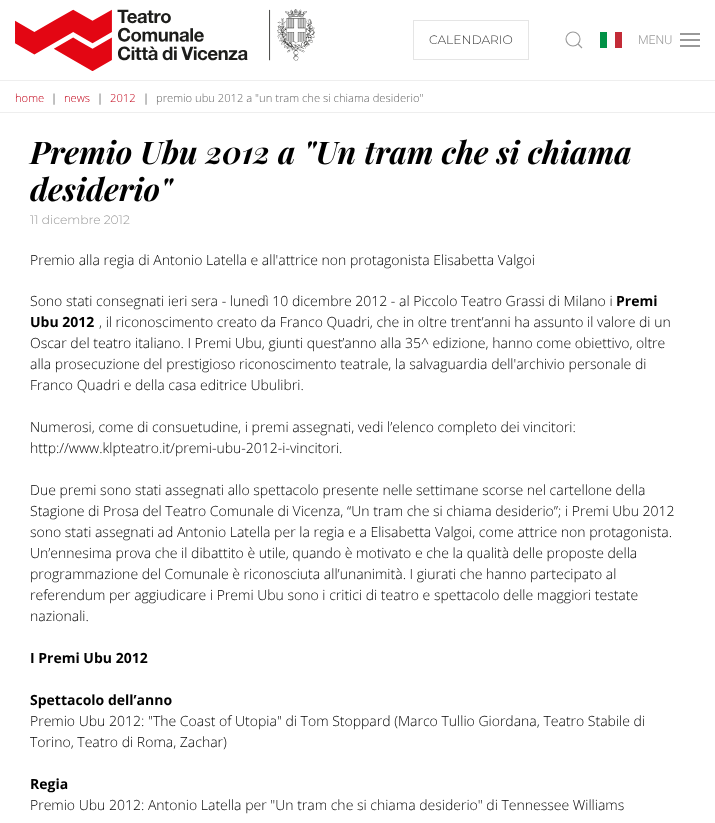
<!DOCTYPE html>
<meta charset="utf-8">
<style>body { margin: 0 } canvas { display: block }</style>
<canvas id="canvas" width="715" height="823"></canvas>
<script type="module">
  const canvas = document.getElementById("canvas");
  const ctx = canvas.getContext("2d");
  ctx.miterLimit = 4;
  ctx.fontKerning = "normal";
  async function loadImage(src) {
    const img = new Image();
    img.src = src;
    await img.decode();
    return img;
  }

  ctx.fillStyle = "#ffffff";
  ctx.fillRect(0, 0, 715, 823);
  ctx.drawImage(await loadImage("img1.png"), 15, 9, 300, 62);
  ctx.strokeStyle = "#e5e5e5";
  ctx.strokeRect(413.5, 20.5, 115, 39);
  ctx.font = "300 12.25px Montserrat";
  ctx.fillStyle = "#333333";
  ctx.fillText("CALENDARIO", 429, 44);
  ctx.beginPath();
  ctx.arc(573, 39, 7, 0, Math.PI * 2);
  ctx.strokeStyle = "#999999";
  ctx.lineWidth = 1.1;
  ctx.stroke();
  ctx.beginPath();
  ctx.moveTo(578, 44);
  ctx.lineTo(582, 48);
  ctx.closePath();
  ctx.stroke();
  ctx.drawImage(await loadImage("img2.png"), 600, 32, 22, 16);
  ctx.font = "300 12.25px Roboto";
  ctx.fillStyle = "#999999";
  ctx.fillText("MENU", 638, 44);
  ctx.fillRect(680, 39, 20, 2);
  ctx.fillRect(680, 33, 20, 2);
  ctx.fillRect(680, 45, 20, 2);
  ctx.fillStyle = "#eeeeee";
  ctx.fillRect(0, 80, 715, 1);
  ctx.fillRect(0, 112, 715, 1);
  ctx.font = "300 11.2px Open Sans";
  ctx.fillStyle = "#c10017";
  ctx.fillText("home", 15, 102);
  ctx.fillStyle = "#000000";
  ctx.fillText("|", 51, 102);
  ctx.fillStyle = "#c10017";
  ctx.fillText("news", 64, 102);
  ctx.fillStyle = "#000000";
  ctx.fillText("|", 97, 102);
  ctx.fillStyle = "#c10017";
  ctx.fillText("2012", 110, 102);
  ctx.fillStyle = "#000000";
  ctx.fillText("|", 143, 102);
  ctx.fillStyle = "#666666";
  ctx.fillText("premio ubu 2012 a \"un tram che si chiama desiderio\"", 156, 102);
  ctx.font = "italic bold 31.25px Playfair Display";
  ctx.fillStyle = "#000000";
  ctx.fillText("Premio Ubu 2012 a \"Un tram che si chiama", 30, 164);
  ctx.fillText("desiderio\"", 30, 201);
  ctx.font = "300 12.25px Montserrat";
  ctx.fillStyle = "#999999";
  ctx.fillText("11 dicembre 2012", 30, 224);
  ctx.font = "300 14px Open Sans";
  ctx.fillStyle = "#000000";
  ctx.fillText("Premio alla regia di Antonio Latella e all'attrice non protagonista Elisabetta Valgoi", 30, 265);
  ctx.fillText("Sono stati consegnati ieri sera - lunedì 10 dicembre 2012 - al Piccolo Teatro Grassi di Milano i", 30, 306);
  ctx.font = "bold 14px Open Sans";
  ctx.fillText("Premi", 616, 306);
  ctx.fillText("Ubu 2012", 30, 327);
  ctx.font = "300 14px Open Sans";
  ctx.fillText(", il riconoscimento creato da Franco Quadri, che in oltre trent’anni ha assunto il valore di un", 99, 327);
  ctx.fillText("Oscar del teatro italiano. I Premi Ubu, giunti quest’anno alla 35^ edizione, hanno come obiettivo, oltre", 30, 348);
  ctx.fillText("alla prosecuzione del prestigioso riconoscimento teatrale, la salvaguardia dell'archivio personale di", 30, 369);
  ctx.fillText("Franco Quadri e della casa editrice Ubulibri.", 30, 390);
  ctx.fillText("Numerosi, come di consuetudine, i premi assegnati, vedi l’elenco completo dei vincitori:", 30, 432);
  ctx.fillText("http://www.klpteatro.it/premi-ubu-2012-i-vincitori.", 30, 453);
  ctx.fillText("Due premi sono stati assegnati allo spettacolo presente nelle settimane scorse nel cartellone della", 30, 495);
  ctx.fillText("Stagione di Prosa del Teatro Comunale di Vicenza, “Un tram che si chiama desiderio”; i Premi Ubu 2012", 30, 516);
  ctx.fillText("sono stati assegnati ad Antonio Latella per la regia e a Elisabetta Valgoi, come attrice non protagonista.", 30, 537);
  ctx.fillText("Un’ennesima prova che il dibattito è utile, quando è motivato e che la qualità delle proposte della", 30, 558);
  ctx.fillText("programmazione del Comunale è riconosciuta all’unanimità. I giurati che hanno partecipato al", 30, 579);
  ctx.fillText("referendum per aggiudicare i Premi Ubu sono i critici di teatro e spettacolo delle maggiori testate", 30, 600);
  ctx.fillText("nazionali.", 30, 621);
  ctx.font = "bold 14px Open Sans";
  ctx.fillText("I Premi Ubu 2012", 30, 663);
  ctx.fillText("Spettacolo dell’anno", 30, 705);
  ctx.font = "300 14px Open Sans";
  ctx.fillText("Premio Ubu 2012: \"The Coast of Utopia\" di Tom Stoppard (Marco Tullio Giordana, Teatro Stabile di", 30, 726);
  ctx.fillText("Torino, Teatro di Roma, Zachar)", 30, 747);
  ctx.font = "bold 14px Open Sans";
  ctx.fillText("Regia", 30, 789);
  ctx.font = "300 14px Open Sans";
  ctx.fillText("Premio Ubu 2012: Antonio Latella per \"Un tram che si chiama desiderio\" di Tennessee Williams", 30, 810);
</script>
